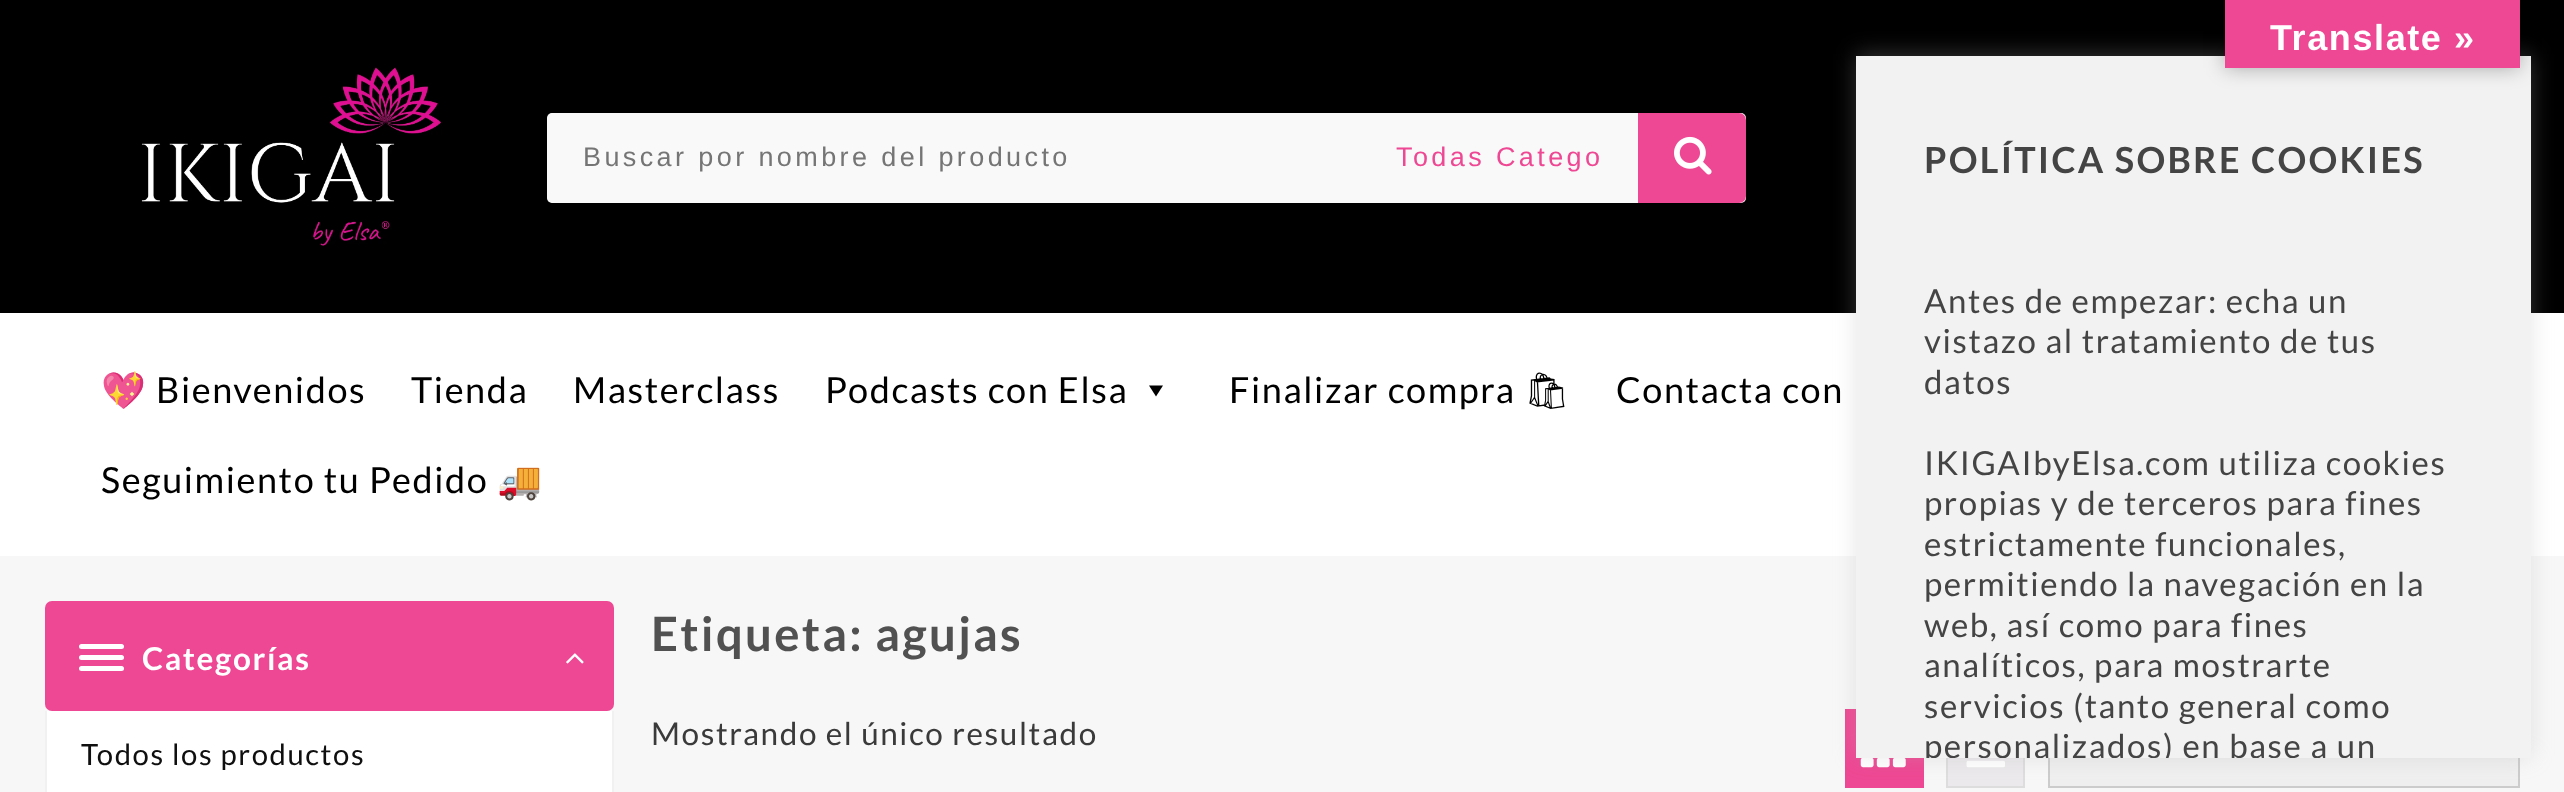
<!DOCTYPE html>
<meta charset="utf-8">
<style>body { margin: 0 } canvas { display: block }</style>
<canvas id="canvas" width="2564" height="792"></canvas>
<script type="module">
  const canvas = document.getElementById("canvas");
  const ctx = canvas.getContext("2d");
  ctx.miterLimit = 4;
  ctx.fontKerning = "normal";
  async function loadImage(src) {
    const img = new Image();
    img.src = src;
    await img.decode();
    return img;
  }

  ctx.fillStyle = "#f7f7f7";
  ctx.fillRect(0, 0, 2564, 792);
  ctx.fillStyle = "#000000";
  ctx.fillRect(0, 0, 2564, 313);
  ctx.fillStyle = "#ffffff";
  ctx.fillRect(0, 313, 2564, 243);
  ctx.fillStyle = "#ee4793";
  ctx.fillRect(1845, 709, 79, 79);
  ctx.fillStyle = "#ebe9eb";
  ctx.fillRect(1948, 758, 75, 28);
  ctx.strokeStyle = "#dddddd";
  ctx.lineWidth = 2;
  ctx.strokeRect(1947, 710, 77, 77);
  ctx.fillStyle = "#efefef";
  ctx.fillRect(2050, 758, 468, 28);
  ctx.strokeStyle = "#cccccc";
  ctx.strokeRect(2049, 710, 470, 77);
  ctx.drawImage(await loadImage("img4.png"), 1860, 758, 46, 10);
  ctx.drawImage(await loadImage("img5.png"), 1966, 760, 39, 8);
  ctx.fillStyle = "rgba(172, 171, 171, 0.3)";
  ctx.filter = "blur(11px)";
  ctx.beginPath();
  ctx.rect(1856, 54, 675, 702);
  ctx.fill();
  ctx.filter = "none";
  ctx.fillStyle = "#f2f2f2";
  ctx.fillRect(1856, 56, 675, 702);
  ctx.fillStyle = "rgba(0, 0, 0, 0.3)";
  ctx.filter = "blur(10px)";
  ctx.beginPath();
  ctx.rect(2225, 0, 295, 68);
  ctx.fill();
  ctx.filter = "none";
  ctx.fillStyle = "#ee4793";
  ctx.fillRect(2225, 0, 295, 68);
  ctx.letterSpacing = "1.6px";
  ctx.font = "bold 36px Liberation Sans";
  ctx.fillStyle = "#ffffff";
  ctx.fillText("Translate »", 2270, 50);
  ctx.drawImage(await loadImage("img1.png"), 141, 67, 301, 179);
  ctx.fillStyle = "#f9f9f9";
  ctx.beginPath();
  ctx.roundRect(547, 113, 1199, 90, 5);
  ctx.fill();
  ctx.beginPath();
  ctx.roundRect(548, 114, 812, 88, [6, 0, 0, 6]);
  ctx.fill();
  ctx.strokeStyle = "#f9f9f9";
  ctx.stroke();
  ctx.letterSpacing = "3.4px";
  ctx.font = "27px Liberation Sans";
  ctx.fillStyle = "#757575";
  ctx.fillText("Buscar por nombre del producto", 583, 166);
  ctx.fillStyle = "#ee4793";
  ctx.fillText("Todas Catego", 1396, 166);
  ctx.beginPath();
  ctx.roundRect(1638, 113, 108, 90, [0, 7, 7, 0]);
  ctx.fill();
  ctx.drawImage(await loadImage("img2.png"), 1674, 136, 38, 39);
  ctx.letterSpacing = "1.6px";
  ctx.font = "36px Noto Color Emoji";
  ctx.fillStyle = "#000000";
  ctx.fillText("💖", 101, 403);
  ctx.font = "36px Lato";
  ctx.fillText("Bienvenidos", 156, 403);
  ctx.fillText("Tienda", 411, 403);
  ctx.fillText("Masterclass", 573, 403);
  ctx.fillText("Podcasts con Elsa", 825, 403);
  ctx.beginPath();
  ctx.moveTo(1163, 385.5);
  ctx.lineTo(1156, 396.5);
  ctx.lineTo(1149, 385.5);
  ctx.closePath();
  ctx.fill();
  ctx.fillText("Finalizar compra", 1229, 403);
  ctx.font = "36px Noto Emoji";
  ctx.fillText("🛍", 1524, 403);
  ctx.font = "36px Lato";
  ctx.fillText("Contacta con", 1616, 403);
  ctx.fillText("Seguimiento tu Pedido", 101, 493);
  ctx.font = "36px Noto Color Emoji";
  ctx.fillText("🚚", 497, 493);
  ctx.fillStyle = "#ee4793";
  ctx.beginPath();
  ctx.roundRect(45, 601, 569, 110, 7);
  ctx.fill();
  ctx.fillStyle = "#ffffff";
  ctx.beginPath();
  ctx.roundRect(79, 644, 45, 5, 2.5);
  ctx.fill();
  ctx.beginPath();
  ctx.roundRect(79, 655, 45, 5, 2.5);
  ctx.fill();
  ctx.beginPath();
  ctx.roundRect(79, 666, 45, 5, 2.5);
  ctx.fill();
  ctx.font = "bold 31.5px Lato";
  ctx.fillText("Categorías", 142, 670);
  ctx.drawImage(await loadImage("img3.png"), 566, 653, 18, 11);
  ctx.fillRect(47, 711, 565, 81);
  ctx.fillStyle = "#f1f1f1";
  ctx.fillRect(612, 711, 2, 81);
  ctx.fillRect(45, 711, 2, 81);
  ctx.font = "29.25px Lato";
  ctx.fillStyle = "#0f0f0f";
  ctx.fillText("Todos los productos", 81, 765);
  ctx.letterSpacing = "2.25px";
  ctx.font = "bold 47.25px Lato";
  ctx.fillStyle = "#515151";
  ctx.fillText("Etiqueta: agujas", 651, 651);
  ctx.letterSpacing = "1.6px";
  ctx.font = "31.5px Lato";
  ctx.fillStyle = "#3a3a3a";
  ctx.fillText("Mostrando el único resultado", 651, 745);
  ctx.letterSpacing = "2.25px";
  ctx.font = "bold 36px Lato";
  ctx.fillStyle = "#444444";
  ctx.fillText("POLÍTICA SOBRE COOKIES", 1924, 173);
  ctx.letterSpacing = "1.6px";
  ctx.font = "33px Lato";
  ctx.fillText("Antes de empezar: echa un", 1924, 313);
  ctx.fillText("vistazo al tratamiento de tus", 1924, 353);
  ctx.fillText("datos", 1924, 394);
  ctx.fillText("IKIGAIbyElsa.com utiliza cookies", 1924, 475);
  ctx.fillText("propias y de terceros para fines", 1924, 515);
  ctx.fillText("estrictamente funcionales,", 1924, 556);
  ctx.fillText("permitiendo la navegación en la", 1924, 596);
  ctx.fillText("web, así como para fines", 1924, 637);
  ctx.fillText("analíticos, para mostrarte", 1924, 677);
  ctx.fillText("servicios (tanto general como", 1924, 718);
  ctx.save();
  ctx.beginPath();
  ctx.rect(1856, 56, 675, 702);
  ctx.clip();
  ctx.fillText("personalizados) en base a un", 1924, 758);
  ctx.restore();
</script>
